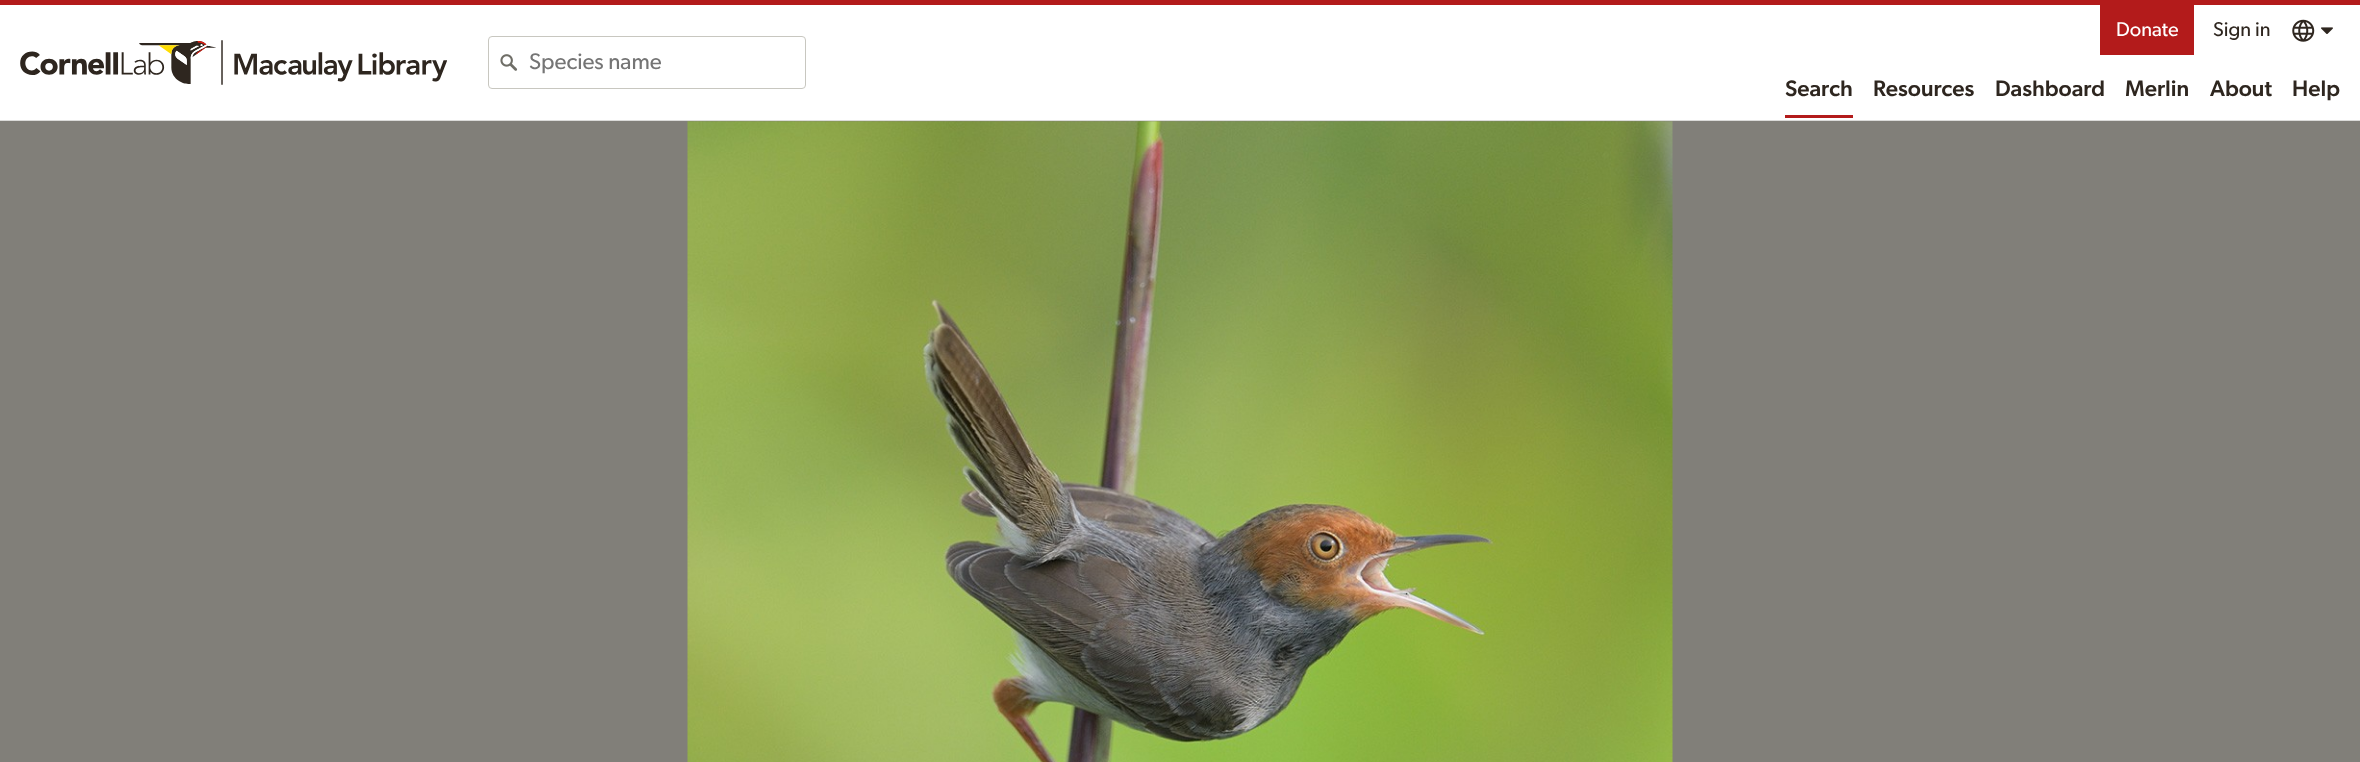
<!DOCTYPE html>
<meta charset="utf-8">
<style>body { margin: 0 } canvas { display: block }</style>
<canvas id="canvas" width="2360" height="762"></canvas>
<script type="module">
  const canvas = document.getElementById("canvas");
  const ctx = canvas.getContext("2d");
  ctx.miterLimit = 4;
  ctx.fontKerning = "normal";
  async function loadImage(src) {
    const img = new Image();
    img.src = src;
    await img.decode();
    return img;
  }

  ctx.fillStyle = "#ffffff";
  ctx.fillRect(0, 0, 2360, 762);
  ctx.fillStyle = "#b31b1b";
  ctx.fillRect(0, 0, 2360, 5);
  ctx.fillStyle = "#dbdbd9";
  ctx.fillRect(0, 120, 2360, 1);
  ctx.drawImage(await loadImage("img1.png"), 20, 40, 427, 45);
  ctx.beginPath();
  ctx.roundRect(488.5, 36.5, 317, 52, 3.5);
  ctx.strokeStyle = "#c8c7c0";
  ctx.stroke();
  ctx.drawImage(await loadImage("img2.png"), 500, 54, 18, 17);
  ctx.font = "22.5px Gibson";
  ctx.fillStyle = "#757575";
  ctx.fillText("Species name", 529, 69);
  ctx.fillStyle = "#b31b1b";
  ctx.fillRect(2100, 5, 94, 50);
  ctx.font = "20px Gibson";
  ctx.fillStyle = "#ffffff";
  ctx.fillText("Donate", 2116, 36);
  ctx.fillStyle = "#2e261f";
  ctx.fillText("Sign in", 2213, 36);
  ctx.drawImage(await loadImage("img3.png"), 2292, 19, 23, 23);
  ctx.drawImage(await loadImage("img4.png"), 2321, 27, 12, 7);
  ctx.fillStyle = "#b31b1b";
  ctx.fillRect(1785, 115, 68, 3);
  ctx.font = "500 22.5px Gibson";
  ctx.fillStyle = "#2e261f";
  ctx.fillText("Search", 1785, 96);
  ctx.fillText("Resources", 1873, 96);
  ctx.fillText("Dashboard", 1995, 96);
  ctx.fillText("Merlin", 2125, 96);
  ctx.fillText("About", 2210, 96);
  ctx.fillText("Help", 2292, 96);
  ctx.fillStyle = "#817f79";
  ctx.fillRect(0, 121, 2360, 641);
  ctx.drawImage(await loadImage("img5.png"), 687, 121, 986, 641);
</script>
